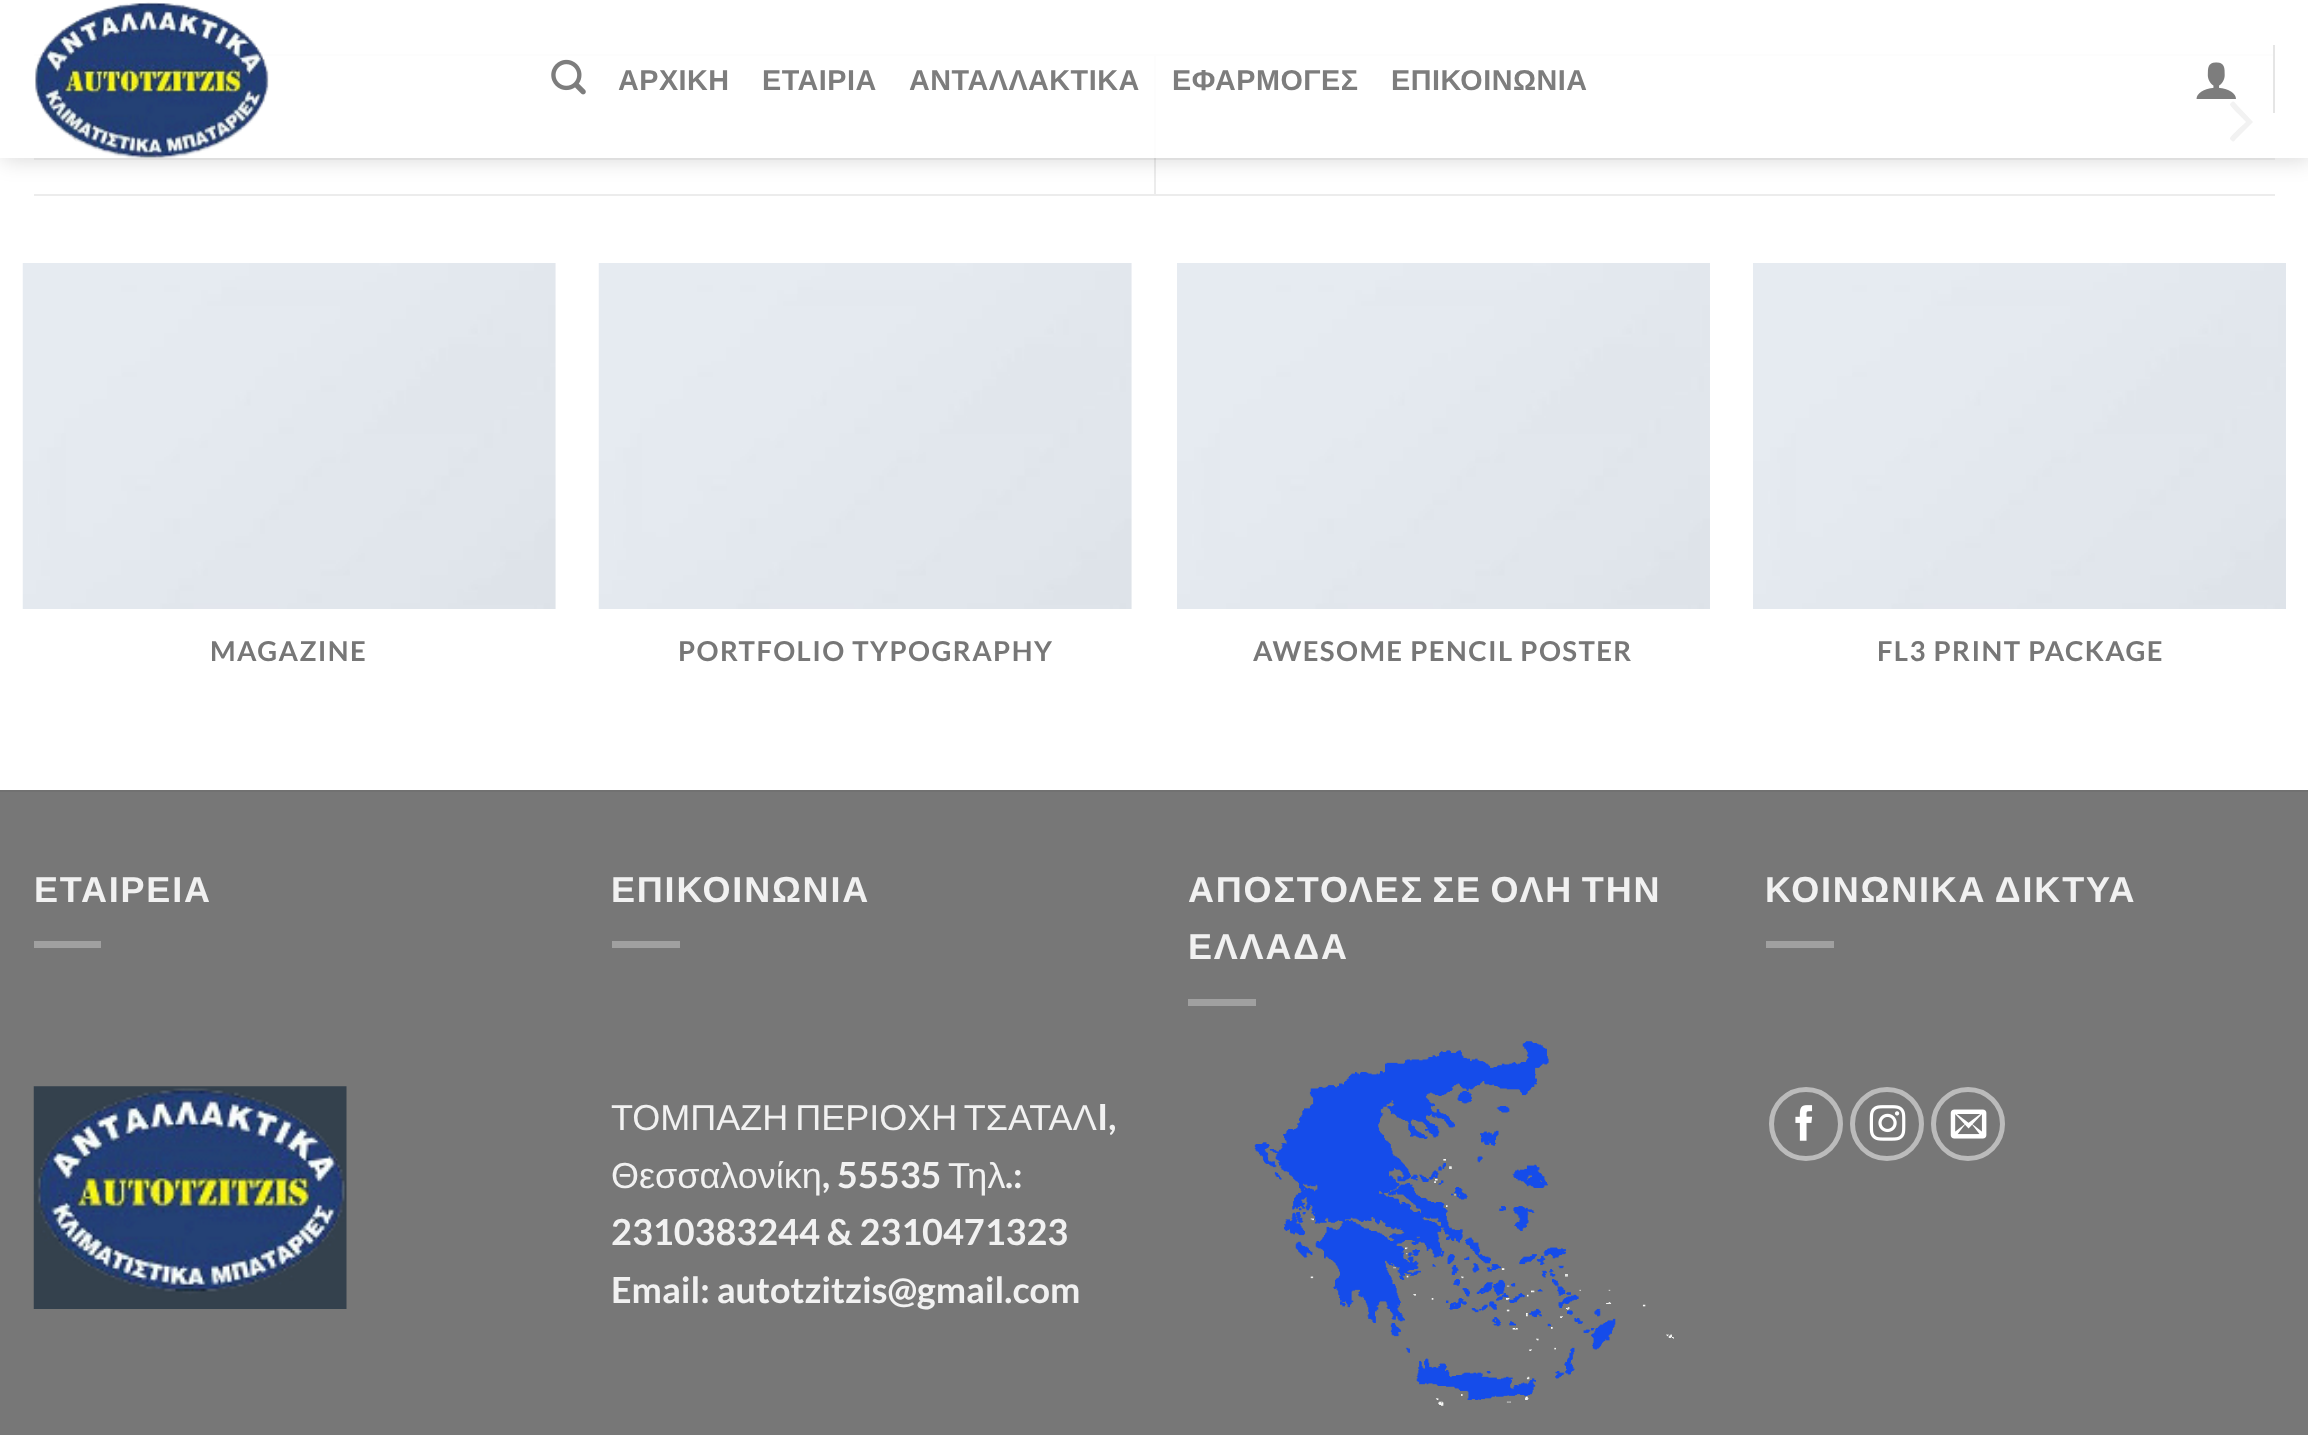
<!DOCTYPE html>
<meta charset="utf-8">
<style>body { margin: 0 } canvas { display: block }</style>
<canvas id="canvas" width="2308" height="1435"></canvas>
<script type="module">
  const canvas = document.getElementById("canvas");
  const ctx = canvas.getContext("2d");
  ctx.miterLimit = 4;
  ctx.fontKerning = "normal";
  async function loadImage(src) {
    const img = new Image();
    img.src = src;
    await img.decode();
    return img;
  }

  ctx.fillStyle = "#ffffff";
  ctx.fillRect(0, 0, 2308, 1435);
  ctx.fillStyle = "#ececec";
  ctx.fillRect(34, 54, 2241, 2);
  ctx.drawImage(await loadImage("img4.png"), 56, 122, 24, 20);
  ctx.fillRect(1154, 56, 2, 138);
  ctx.fillStyle = "#777777";
  ctx.beginPath();
  ctx.moveTo(2253, 122);
  ctx.lineTo(2237, 138);
  ctx.bezierCurveTo(2234, 141, 2234, 143, 2231, 140);
  ctx.lineTo(2230, 139);
  ctx.bezierCurveTo(2229, 137, 2244, 124, 2246, 122);
  ctx.bezierCurveTo(2244, 119, 2229, 106, 2230, 104);
  ctx.lineTo(2231, 103);
  ctx.bezierCurveTo(2234, 100, 2234, 102, 2237, 105);
  ctx.closePath();
  ctx.fill();
  ctx.save();
  ctx.beginPath();
  ctx.moveTo(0, 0);
  ctx.lineTo(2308, 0);
  ctx.lineTo(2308, 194);
  ctx.lineTo(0, 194);
  ctx.closePath();
  ctx.moveTo(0, 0);
  ctx.lineTo(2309, 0);
  ctx.lineTo(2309, 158);
  ctx.lineTo(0, 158);
  ctx.closePath();
  ctx.clip("evenodd");
  ctx.fillStyle = "rgba(0, 0, 0, 0.15)";
  ctx.filter = "blur(11px)";
  ctx.beginPath();
  ctx.rect(2, 2, 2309, 158);
  ctx.fill();
  ctx.filter = "none";
  ctx.restore();
  ctx.fillStyle = "rgba(255, 255, 255, 0.9)";
  ctx.fillRect(0, 54, 2308, 104);
  ctx.drawImage(await loadImage("img1.png"), 35, 2, 234, 156);
  ctx.drawImage(await loadImage("img2.png"), 551, 59, 35, 36);
  ctx.letterSpacing = "0.5px";
  ctx.font = "bold 28.75px Liberation Sans";
  ctx.fillStyle = "#7d7d7d";
  ctx.fillText("ΑΡΧΙΚΗ", 618, 90);
  ctx.fillText("ΕΤΑΙΡΙΑ", 762, 90);
  ctx.fillText("ΑΝΤΑΛΛΑΚΤΙΚΑ", 909, 90);
  ctx.fillText("ΕΦΑΡΜΟΓΕΣ", 1172, 90);
  ctx.fillText("ΕΠΙΚΟΙΝΩΝΙΑ", 1391, 90);
  ctx.drawImage(await loadImage("img3.png"), 2196, 62, 40, 37);
  ctx.fillStyle = "#e5e5e5";
  ctx.fillRect(2273, 45, 2, 68);
  ctx.fillStyle = "rgba(119, 119, 119, 0.1)";
  ctx.fillRect(34, 158, 2241, 2);
  ctx.fillStyle = "#ececec";
  ctx.fillRect(34, 194, 2241, 2);
  ctx.drawImage(await loadImage("img5.png"), 22, 263, 534, 346);
  ctx.letterSpacing = "1.4px";
  ctx.font = "bold 27.5px Lato";
  ctx.fillStyle = "#777777";
  ctx.fillText("MAGAZINE", 210, 661);
  ctx.drawImage(await loadImage("img5.png"), 598, 263, 534, 346);
  ctx.fillText("PORTFOLIO TYPOGRAPHY", 678, 661);
  ctx.drawImage(await loadImage("img6.png"), 1177, 263, 533, 346);
  ctx.fillText("AWESOME PENCIL POSTER", 1253, 661);
  ctx.drawImage(await loadImage("img6.png"), 1753, 263, 533, 346);
  ctx.fillText("FL3 PRINT PACKAGE", 1877, 661);
  ctx.fillRect(0, 792, 2308, 643);
  ctx.fillStyle = "#717171";
  ctx.fillRect(0, 790, 2308, 2);
  ctx.letterSpacing = "1.8px";
  ctx.font = "bold 36px Liberation Sans";
  ctx.fillStyle = "#f1f1f1";
  ctx.fillText("ΕΤΑΙΡΕΙΑ", 34, 902);
  ctx.fillStyle = "#a0a0a0";
  ctx.fillRect(34, 941, 67, 7);
  ctx.drawImage(await loadImage("img7.png"), 33, 1086, 314, 223);
  ctx.fillStyle = "#f1f1f1";
  ctx.fillText("ΕΠΙΚΟΙΝΩΝΙΑ", 611, 902);
  ctx.fillStyle = "#a0a0a0";
  ctx.fillRect(612, 941, 68, 7);
  ctx.letterSpacing = "0px";
  ctx.wordSpacing = "-3px";
  ctx.font = "36px Liberation Sans";
  ctx.fillStyle = "#f1f1f1";
  ctx.fillText("ΤΟΜΠΑΖΗ ΠΕΡΙΟΧΗ ΤΣΑΤΑΛ", 611, 1130);
  ctx.wordSpacing = "0px";
  ctx.font = "bold 36px Lato";
  ctx.fillText("I,", 1097, 1130);
  ctx.font = "36px Liberation Sans";
  ctx.fillText("Θεσσαλονίκη", 611, 1188);
  ctx.font = "bold 36px Lato";
  ctx.fillText(", 55535", 822, 1188);
  ctx.font = "36px Liberation Sans";
  ctx.fillText("Τηλ", 948, 1188);
  ctx.font = "bold 36px Lato";
  ctx.fillText(".:", 1005, 1188);
  ctx.fillText("2310383244 & 2310471323", 611, 1245);
  ctx.fillText("Email: autotzitzis@gmail.com", 611, 1303);
  ctx.letterSpacing = "1.8px";
  ctx.wordSpacing = "-3px";
  ctx.font = "bold 36px Liberation Sans";
  ctx.fillText("ΑΠΟΣΤΟΛΕΣ ΣΕ ΟΛΗ ΤΗΝ", 1188, 902);
  ctx.wordSpacing = "0px";
  ctx.fillText("ΕΛΛΑΔΑ", 1188, 959);
  ctx.fillStyle = "#a0a0a0";
  ctx.fillRect(1188, 999, 68, 7);
  ctx.drawImage(await loadImage("img8.png"), 1254, 1041, 420, 365);
  ctx.wordSpacing = "-2px";
  ctx.fillStyle = "#f1f1f1";
  ctx.fillText("ΚΟΙΝΩΝΙΚΑ ΔΙΚΤΥΑ", 1765, 902);
  ctx.fillStyle = "#a0a0a0";
  ctx.fillRect(1766, 941, 68, 7);
  ctx.beginPath();
  ctx.arc(1806, 1124, 34.5, 0, Math.PI * 2);
  ctx.strokeStyle = "#bbbbbb";
  ctx.lineWidth = 5;
  ctx.stroke();
  ctx.drawImage(await loadImage("img9.png"), 1795, 1105, 18, 36);
  ctx.beginPath();
  ctx.arc(1887, 1124, 34.5, 0, Math.PI * 2);
  ctx.stroke();
  ctx.drawImage(await loadImage("img10.png"), 1869, 1105, 37, 36);
  ctx.beginPath();
  ctx.arc(1968, 1124, 34.5, 0, Math.PI * 2);
  ctx.stroke();
  ctx.drawImage(await loadImage("img11.png"), 1950, 1109, 37, 30);
</script>
